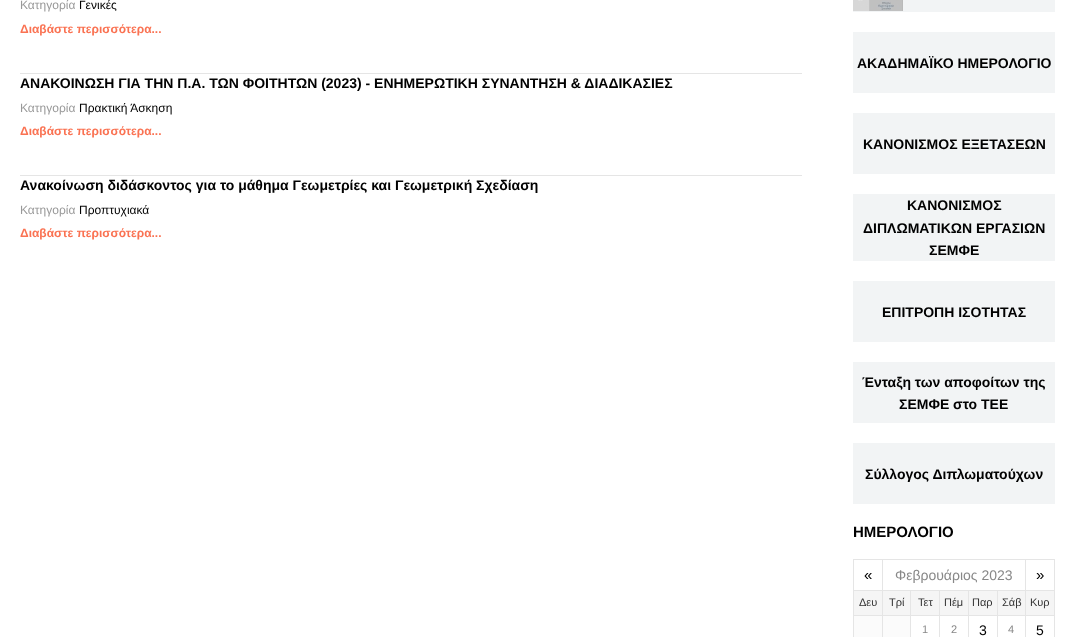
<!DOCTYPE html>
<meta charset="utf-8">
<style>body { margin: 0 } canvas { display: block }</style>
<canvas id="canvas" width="1069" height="637"></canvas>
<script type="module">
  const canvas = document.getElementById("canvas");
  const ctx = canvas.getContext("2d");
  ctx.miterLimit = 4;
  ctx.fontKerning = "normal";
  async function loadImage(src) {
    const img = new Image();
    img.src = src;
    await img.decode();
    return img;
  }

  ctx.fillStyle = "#ffffff";
  ctx.fillRect(0, 0, 1069, 637);
  ctx.font = "12px Liberation Sans";
  ctx.fillStyle = "#999999";
  ctx.fillText("Κατηγορία", 20, 9);
  ctx.fillStyle = "#010101";
  ctx.fillText("Γενικές", 79, 9);
  ctx.font = "bold 12px Liberation Sans";
  ctx.fillStyle = "#fa7252";
  ctx.fillText("Διαβάστε περισσότερα...", 20, 33);
  ctx.fillStyle = "#e5e5e5";
  ctx.fillRect(20, 73, 782, 1);
  ctx.font = "bold 14px Liberation Sans";
  ctx.fillStyle = "#010101";
  ctx.fillText("ΑΝΑΚΟΙΝΩΣΗ ΓΙΑ ΤΗΝ Π.Α. ΤΩΝ ΦΟΙΤΗΤΩΝ (2023) - ΕΝΗΜΕΡΩΤΙΚΗ ΣΥΝΑΝΤΗΣΗ & ΔΙΑΔΙΚΑΣΙΕΣ", 20, 88);
  ctx.font = "12px Liberation Sans";
  ctx.fillStyle = "#999999";
  ctx.fillText("Κατηγορία", 20, 112);
  ctx.fillStyle = "#010101";
  ctx.fillText("Πρακτική Άσκηση", 79, 112);
  ctx.font = "bold 12px Liberation Sans";
  ctx.fillStyle = "#fa7252";
  ctx.fillText("Διαβάστε περισσότερα...", 20, 135);
  ctx.fillStyle = "#e5e5e5";
  ctx.fillRect(20, 175, 782, 1);
  ctx.font = "bold 14px Liberation Sans";
  ctx.fillStyle = "#010101";
  ctx.fillText("Ανακοίνωση διδάσκοντος για το μάθημα Γεωμετρίες και Γεωμετρική Σχεδίαση", 20, 190);
  ctx.font = "12px Liberation Sans";
  ctx.fillStyle = "#999999";
  ctx.fillText("Κατηγορία", 20, 214);
  ctx.fillStyle = "#010101";
  ctx.fillText("Προπτυχιακά", 79, 214);
  ctx.font = "bold 12px Liberation Sans";
  ctx.fillStyle = "#fa7252";
  ctx.fillText("Διαβάστε περισσότερα...", 20, 237);
  ctx.fillStyle = "#f2f4f5";
  ctx.fillRect(853, 0, 202, 12);
  ctx.drawImage(await loadImage("img1.png"), 853, 0, 50, 11);
  ctx.fillRect(853, 32, 202, 61);
  ctx.font = "bold 14px Liberation Sans";
  ctx.fillStyle = "#010101";
  ctx.fillText("ΑΚΑΔΗΜΑΪΚΟ ΗΜΕΡΟΛΟΓΙΟ", 857, 68);
  ctx.fillStyle = "#f2f4f5";
  ctx.fillRect(853, 113, 202, 61);
  ctx.fillStyle = "#010101";
  ctx.fillText("ΚΑΝΟΝΙΣΜΟΣ ΕΞΕΤΑΣΕΩΝ", 863, 149);
  ctx.fillStyle = "#f2f4f5";
  ctx.fillRect(853, 194, 202, 67);
  ctx.fillStyle = "#010101";
  ctx.fillText("ΚΑΝΟΝΙΣΜΟΣ", 907, 210);
  ctx.fillText("ΔΙΠΛΩΜΑΤΙΚΩΝ ΕΡΓΑΣΙΩΝ", 863, 233);
  ctx.fillText("ΣΕΜΦΕ", 929, 255);
  ctx.fillStyle = "#f2f4f5";
  ctx.fillRect(853, 281, 202, 61);
  ctx.fillStyle = "#010101";
  ctx.fillText("ΕΠΙΤΡΟΠΗ ΙΣΟΤΗΤΑΣ", 882, 317);
  ctx.fillStyle = "#f2f4f5";
  ctx.fillRect(853, 362, 202, 61);
  ctx.fillStyle = "#010101";
  ctx.fillText("Ένταξη των αποφοίτων της", 862, 387);
  ctx.fillText("ΣΕΜΦΕ στο ΤΕΕ", 899, 409);
  ctx.fillStyle = "#f2f4f5";
  ctx.fillRect(853, 443, 202, 61);
  ctx.fillStyle = "#010101";
  ctx.fillText("Σύλλογος Διπλωματούχων", 865, 479);
  ctx.font = "bold 15px Liberation Sans";
  ctx.fillText("ΗΜΕΡΟΛΟΓΙΟ", 853, 537);
  ctx.fillStyle = "#e5e5e5";
  ctx.fillRect(1025, 559, 30, 1);
  ctx.fillRect(1025, 590, 30, 1);
  ctx.fillRect(1025, 615, 30, 1);
  ctx.fillRect(1025, 615, 1, 22);
  ctx.fillRect(997, 615, 29, 1);
  ctx.fillRect(1025, 590, 1, 26);
  ctx.fillRect(997, 590, 29, 1);
  ctx.fillRect(1025, 559, 1, 32);
  ctx.fillRect(882, 559, 144, 1);
  ctx.fillRect(997, 615, 1, 22);
  ctx.fillRect(968, 615, 30, 1);
  ctx.fillRect(997, 590, 1, 26);
  ctx.fillRect(968, 590, 30, 1);
  ctx.fillRect(968, 615, 1, 22);
  ctx.fillRect(939, 615, 30, 1);
  ctx.fillRect(968, 590, 1, 26);
  ctx.fillRect(939, 590, 30, 1);
  ctx.fillRect(939, 615, 1, 22);
  ctx.fillRect(910, 615, 30, 1);
  ctx.fillRect(939, 590, 1, 26);
  ctx.fillRect(910, 590, 30, 1);
  ctx.fillRect(910, 615, 1, 22);
  ctx.fillRect(882, 615, 29, 1);
  ctx.fillRect(910, 590, 1, 26);
  ctx.fillRect(882, 590, 29, 1);
  ctx.fillRect(882, 615, 1, 22);
  ctx.fillRect(853, 615, 30, 1);
  ctx.fillRect(882, 590, 1, 26);
  ctx.fillRect(853, 590, 30, 1);
  ctx.fillRect(882, 559, 1, 32);
  ctx.fillRect(853, 559, 30, 1);
  ctx.fillRect(853, 615, 1, 22);
  ctx.fillRect(853, 590, 1, 26);
  ctx.fillRect(853, 559, 1, 32);
  ctx.font = "15px Liberation Sans";
  ctx.fillStyle = "#010101";
  ctx.fillText("«", 864, 580);
  ctx.font = "14px Liberation Sans";
  ctx.fillStyle = "#888888";
  ctx.fillText("Φεβρουάριος 2023", 895, 580);
  ctx.fillStyle = "#e5e5e5";
  ctx.fillRect(1054, 615, 1, 22);
  ctx.fillRect(1054, 590, 1, 26);
  ctx.fillRect(1054, 559, 1, 32);
  ctx.font = "15px Liberation Sans";
  ctx.fillStyle = "#010101";
  ctx.fillText("»", 1036, 580);
  ctx.fillStyle = "#f5f5f5";
  ctx.fillRect(854, 591, 28, 24);
  ctx.font = "11px Liberation Sans";
  ctx.fillStyle = "#333333";
  ctx.fillText("Δευ", 859, 606);
  ctx.fillStyle = "#f5f5f5";
  ctx.fillRect(883, 591, 27, 24);
  ctx.fillStyle = "#333333";
  ctx.fillText("Τρί", 889, 606);
  ctx.fillStyle = "#f5f5f5";
  ctx.fillRect(911, 591, 28, 24);
  ctx.fillStyle = "#333333";
  ctx.fillText("Τετ", 918, 606);
  ctx.fillStyle = "#f5f5f5";
  ctx.fillRect(940, 591, 28, 24);
  ctx.fillStyle = "#333333";
  ctx.fillText("Πέμ", 944, 606);
  ctx.fillStyle = "#f5f5f5";
  ctx.fillRect(969, 591, 28, 24);
  ctx.fillStyle = "#333333";
  ctx.fillText("Παρ", 972, 606);
  ctx.fillStyle = "#f5f5f5";
  ctx.fillRect(998, 591, 27, 24);
  ctx.fillStyle = "#333333";
  ctx.fillText("Σάβ", 1002, 606);
  ctx.fillStyle = "#f5f5f5";
  ctx.fillRect(1026, 591, 28, 24);
  ctx.fillStyle = "#333333";
  ctx.fillText("Κυρ", 1030, 606);
  ctx.fillStyle = "#fbfbfb";
  ctx.fillRect(854, 616, 28, 21);
  ctx.fillRect(883, 616, 27, 21);
  ctx.fillStyle = "#888888";
  ctx.fillText("1", 922, 633);
  ctx.fillText("2", 951, 633);
  ctx.font = "14px Liberation Sans";
  ctx.fillStyle = "#010101";
  ctx.fillText("3", 979, 635);
  ctx.font = "11px Liberation Sans";
  ctx.fillStyle = "#888888";
  ctx.fillText("4", 1008, 633);
  ctx.font = "14px Liberation Sans";
  ctx.fillStyle = "#010101";
  ctx.fillText("5", 1036, 635);
</script>
